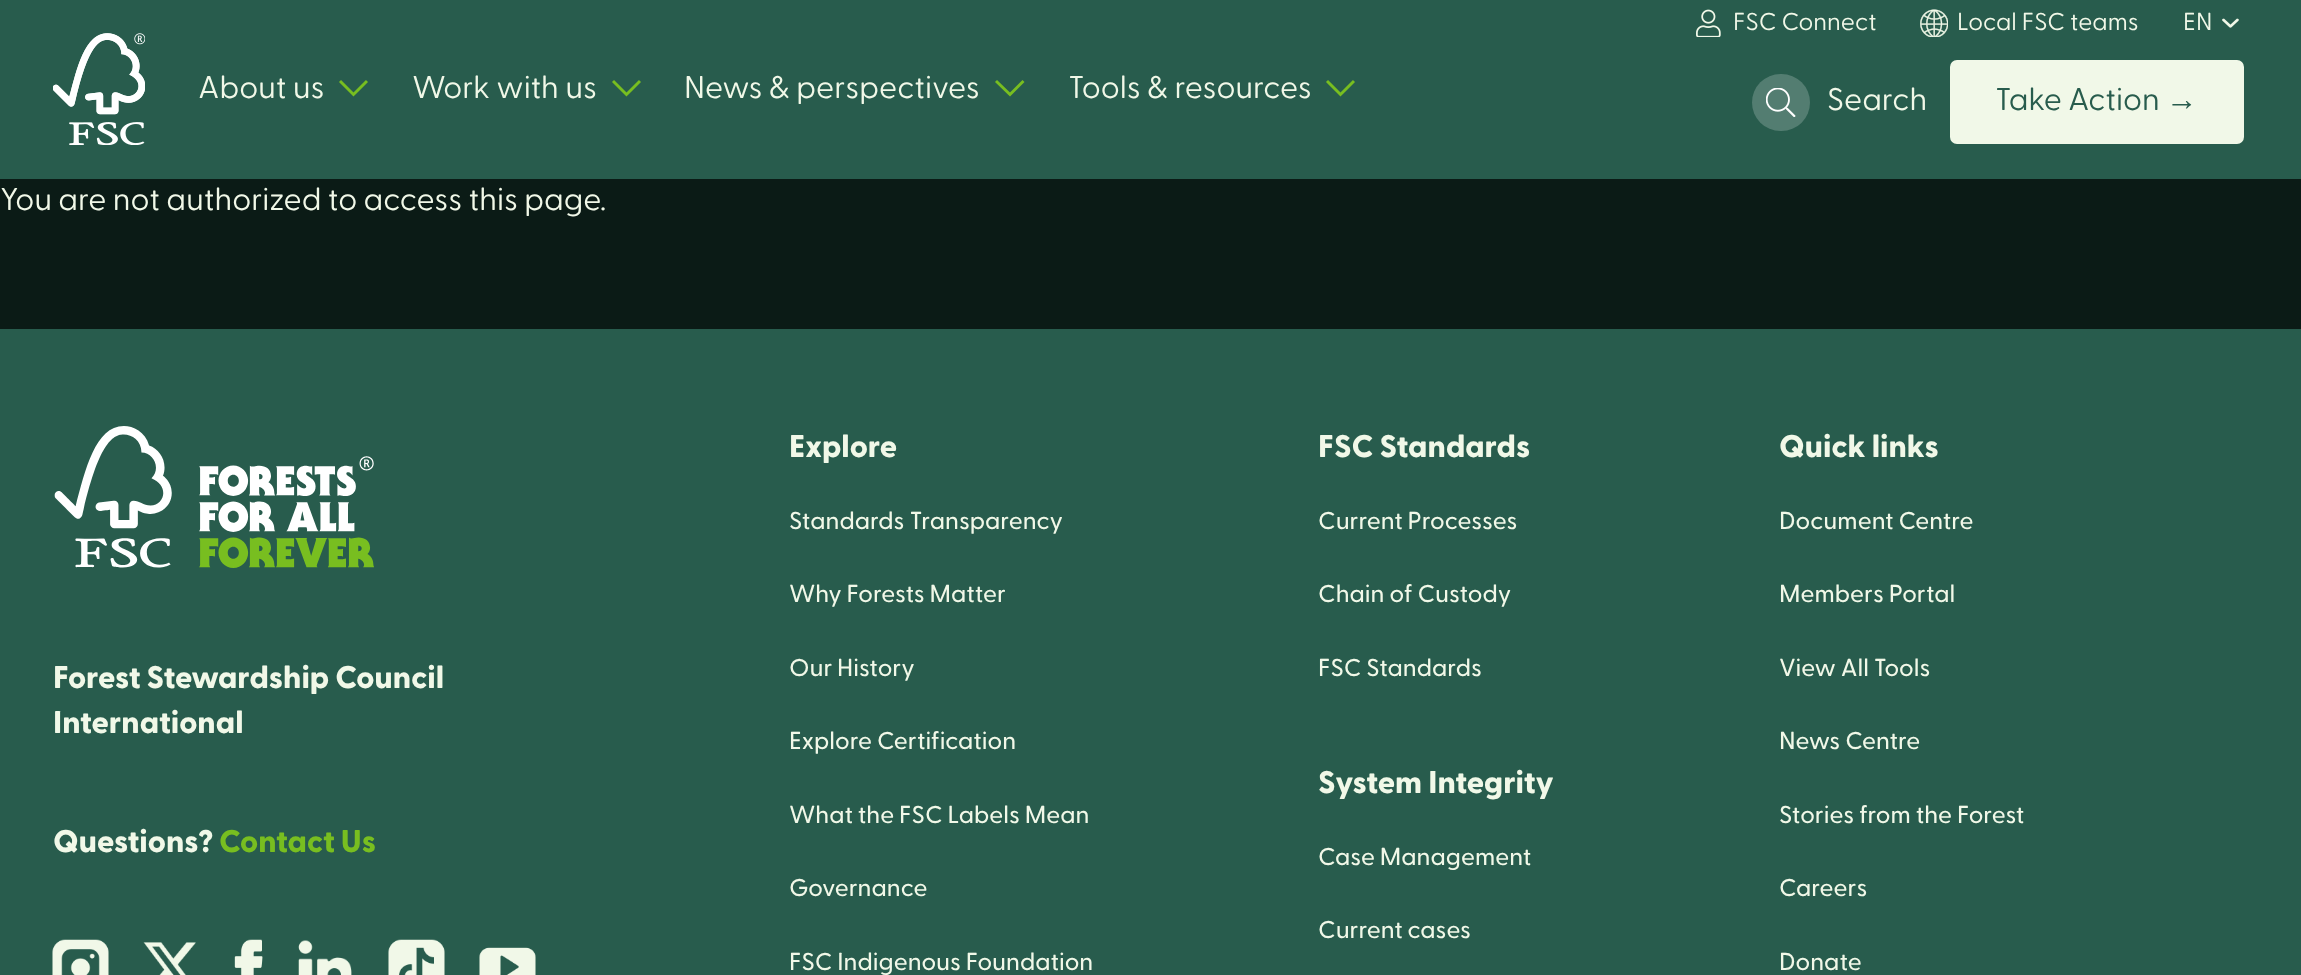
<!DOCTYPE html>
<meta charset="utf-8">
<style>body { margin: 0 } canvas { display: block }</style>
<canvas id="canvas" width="2301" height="975"></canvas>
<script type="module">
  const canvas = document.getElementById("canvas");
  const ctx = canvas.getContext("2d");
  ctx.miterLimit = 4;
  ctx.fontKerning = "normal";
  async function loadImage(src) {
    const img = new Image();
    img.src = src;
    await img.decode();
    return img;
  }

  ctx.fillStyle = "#0b1b16";
  ctx.fillRect(0, 0, 2301, 975);
  ctx.fillStyle = "#285c4d";
  ctx.fillRect(0, 0, 2301, 179);
  ctx.drawImage(await loadImage("img1.png"), 53, 33, 92, 112);
  ctx.font = "31.5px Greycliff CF";
  ctx.fillStyle = "#f1f8e8";
  ctx.fillText("About us", 198, 98);
  ctx.beginPath();
  ctx.moveTo(367, 81);
  ctx.lineTo(353.5, 94.5);
  ctx.lineTo(340, 81);
  ctx.strokeStyle = "#78be20";
  ctx.lineWidth = 2.9;
  ctx.stroke();
  ctx.fillText("Work with us", 412, 98);
  ctx.beginPath();
  ctx.moveTo(640, 81);
  ctx.lineTo(626.5, 94.5);
  ctx.lineTo(613, 81);
  ctx.stroke();
  ctx.fillText("News & perspectives", 684, 98);
  ctx.beginPath();
  ctx.moveTo(1023.5, 81);
  ctx.lineTo(1010, 94.5);
  ctx.lineTo(996, 81);
  ctx.stroke();
  ctx.fillText("Tools & resources", 1068, 98);
  ctx.beginPath();
  ctx.moveTo(1354, 81);
  ctx.lineTo(1340.5, 94.5);
  ctx.lineTo(1327, 81);
  ctx.stroke();
  ctx.drawImage(await loadImage("img2.png"), 1696, 9, 25, 28);
  ctx.font = "24.5px Greycliff CF";
  ctx.fillText("FSC Connect", 1733, 30);
  ctx.drawImage(await loadImage("img3.png"), 1920, 9, 28, 28);
  ctx.fillText("Local FSC teams", 1957, 30);
  ctx.fillText("EN", 2183, 30);
  ctx.drawImage(await loadImage("img4.png"), 2222, 18, 17, 10);
  ctx.fillStyle = "#537d71";
  ctx.beginPath();
  ctx.roundRect(1752, 74, 58, 57, 28.5);
  ctx.fill();
  ctx.drawImage(await loadImage("img5.png"), 1766, 88, 30, 29);
  ctx.font = "31.5px Greycliff CF";
  ctx.fillStyle = "#f1f8e8";
  ctx.fillText("Search", 1827, 110);
  ctx.beginPath();
  ctx.roundRect(1951, 61, 292, 82, 6);
  ctx.fill();
  ctx.strokeStyle = "#f1f8e8";
  ctx.lineWidth = 2;
  ctx.stroke();
  ctx.fillStyle = "#285c4d";
  ctx.fillText("Take Action", 1995, 110);
  ctx.font = "31.5px Liberation Sans";
  ctx.fillText("→", 2166, 110);
  ctx.font = "31.5px Greycliff CF";
  ctx.fillStyle = "#f1f8e8";
  ctx.fillText("You are not authorized to access this page.", 0, 210);
  ctx.fillStyle = "#285c4d";
  ctx.fillRect(0, 329, 2301, 646);
  ctx.drawImage(await loadImage("img6.png"), 54, 426, 320, 142);
  ctx.font = "800 31.5px Greycliff CF";
  ctx.fillStyle = "#f1f8e8";
  ctx.fillText("Forest Stewardship Council", 53, 688);
  ctx.fillText("International", 53, 733);
  ctx.fillText("Questions?", 53, 852);
  ctx.fillStyle = "#78be20";
  ctx.fillText("Contact Us", 219, 852);
  ctx.drawImage(await loadImage("img7.png"), 52, 939, 57, 36);
  ctx.drawImage(await loadImage("img8.png"), 143, 942, 53, 33);
  ctx.drawImage(await loadImage("img9.png"), 234, 939, 29, 36);
  ctx.drawImage(await loadImage("img10.png"), 298, 940, 54, 35);
  ctx.drawImage(await loadImage("img11.png"), 388, 939, 57, 36);
  ctx.drawImage(await loadImage("img12.png"), 479, 947, 57, 28);
  ctx.fillStyle = "#f1f8e8";
  ctx.fillText("Explore", 789, 457);
  ctx.font = "500 24.5px Greycliff CF";
  ctx.fillText("Standards Transparency", 789, 529);
  ctx.fillText("Why Forests Matter", 789, 602);
  ctx.fillText("Our History", 789, 676);
  ctx.fillText("Explore Certification", 789, 749);
  ctx.fillText("What the FSC Labels Mean", 789, 823);
  ctx.fillText("Governance", 789, 896);
  ctx.fillText("FSC Indigenous Foundation", 789, 970);
  ctx.font = "800 31.5px Greycliff CF";
  ctx.fillText("FSC Standards", 1318, 457);
  ctx.font = "500 24.5px Greycliff CF";
  ctx.fillText("Current Processes", 1318, 529);
  ctx.fillText("Chain of Custody", 1318, 602);
  ctx.fillText("FSC Standards", 1318, 676);
  ctx.font = "800 31.5px Greycliff CF";
  ctx.fillText("System Integrity", 1318, 793);
  ctx.font = "500 24.5px Greycliff CF";
  ctx.fillText("Case Management", 1318, 865);
  ctx.fillText("Current cases", 1318, 938);
  ctx.font = "800 31.5px Greycliff CF";
  ctx.fillText("Quick links", 1779, 457);
  ctx.font = "500 24.5px Greycliff CF";
  ctx.fillText("Document Centre", 1779, 529);
  ctx.fillText("Members Portal", 1779, 602);
  ctx.fillText("View All Tools", 1779, 676);
  ctx.fillText("News Centre", 1779, 749);
  ctx.fillText("Stories from the Forest", 1779, 823);
  ctx.fillText("Careers", 1779, 896);
  ctx.fillText("Donate", 1779, 970);
</script>
